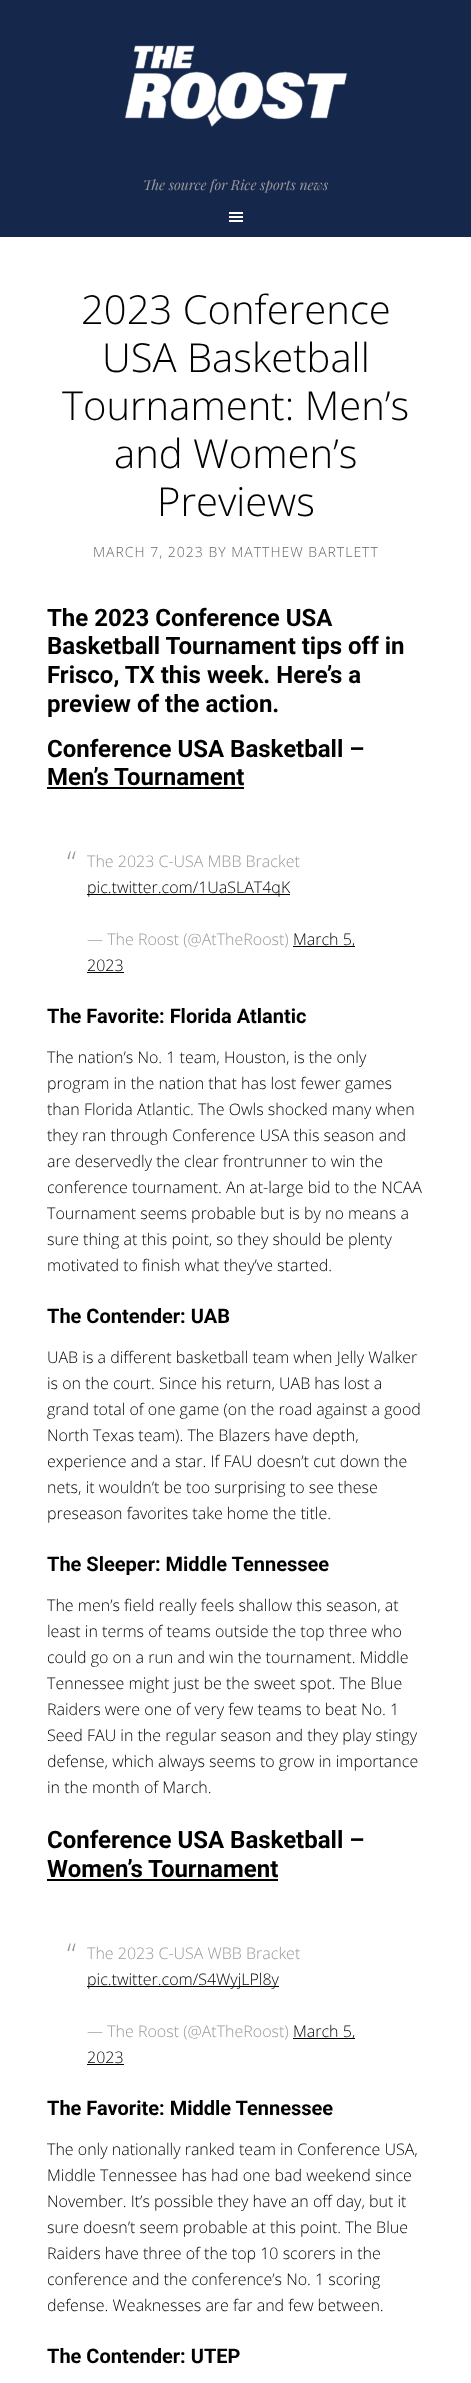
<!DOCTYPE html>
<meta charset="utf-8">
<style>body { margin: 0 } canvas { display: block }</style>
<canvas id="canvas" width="471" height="2383"></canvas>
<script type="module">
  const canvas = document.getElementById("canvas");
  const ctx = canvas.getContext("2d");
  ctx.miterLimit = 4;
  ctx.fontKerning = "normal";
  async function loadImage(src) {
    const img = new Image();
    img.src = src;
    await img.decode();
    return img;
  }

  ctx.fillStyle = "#15284c";
  ctx.fillRect(0, 0, 471, 2383);
  ctx.drawImage(await loadImage("img1.png"), 124, 45, 224, 82);
  ctx.font = "italic 14px Playfair Display";
  ctx.fillStyle = "#999999";
  ctx.fillText("The source for Rice sports news", 143, 190);
  ctx.drawImage(await loadImage("img2.png"), 229, 212, 14, 10);
  ctx.fillStyle = "#ffffff";
  ctx.fillRect(0, 237, 471, 2146);
  ctx.font = "300 40px Open Sans";
  ctx.fillStyle = "#000000";
  ctx.fillText("2023 Conference", 81, 324);
  ctx.fillText("USA Basketball", 102, 372);
  ctx.fillText("Tournament: Men’s", 62, 420);
  ctx.fillText("and Women’s", 114, 468);
  ctx.fillText("Previews", 157, 516);
  ctx.letterSpacing = "1px";
  ctx.font = "300 14px Open Sans";
  ctx.fillStyle = "#666666";
  ctx.fillText("MARCH 7, 2023 BY MATTHEW BARTLETT", 93, 557);
  ctx.letterSpacing = "0px";
  ctx.font = "bold 24px Roboto";
  ctx.fillStyle = "#000000";
  ctx.fillText("The 2023 Conference USA", 47, 626);
  ctx.fillText("Basketball Tournament tips off in", 47, 654);
  ctx.fillText("Frisco, TX this week. Here’s a", 47, 683);
  ctx.fillText("preview of the action.", 47, 712);
  ctx.fillText("Conference USA Basketball –", 47, 757);
  ctx.fillText("Men’s Tournament", 47, 785);
  ctx.fillRect(47, 787, 197, 2);
  ctx.font = "300 30px Open Sans";
  ctx.fillStyle = "#999999";
  ctx.fillText("“", 67, 873);
  ctx.font = "300 16px Open Sans";
  ctx.fillText("The 2023 C-USA MBB Bracket", 87, 867);
  ctx.fillStyle = "#000000";
  ctx.fillRect(87, 894, 203, 1);
  ctx.fillText("pic.twitter.com/1UaSLAT4qK", 87, 893);
  ctx.fillStyle = "#999999";
  ctx.fillText("— The Roost (@AtTheRoost)", 87, 945);
  ctx.fillStyle = "#000000";
  ctx.fillRect(293, 946, 62, 1);
  ctx.fillText("March 5,", 293, 945);
  ctx.fillText("2023", 87, 971);
  ctx.fillRect(87, 972, 37, 1);
  ctx.font = "bold 20px Roboto";
  ctx.fillText("The Favorite: Florida Atlantic", 47, 1023);
  ctx.font = "300 16px Open Sans";
  ctx.fillText("The nation’s No. 1 team, Houston, is the only", 47, 1063);
  ctx.fillText("program in the nation that has lost fewer games", 47, 1089);
  ctx.fillText("than Florida Atlantic. The Owls shocked many when", 47, 1115);
  ctx.fillText("they ran through Conference USA this season and", 47, 1141);
  ctx.fillText("are deservedly the clear frontrunner to win the", 47, 1167);
  ctx.fillText("conference tournament. An at-large bid to the NCAA", 47, 1193);
  ctx.fillText("Tournament seems probable but is by no means a", 47, 1219);
  ctx.fillText("sure thing at this point, so they should be plenty", 47, 1245);
  ctx.fillText("motivated to finish what they’ve started.", 47, 1271);
  ctx.font = "bold 20px Roboto";
  ctx.fillText("The Contender: UAB", 47, 1323);
  ctx.font = "300 16px Open Sans";
  ctx.fillText("UAB is a different basketball team when Jelly Walker", 47, 1363);
  ctx.fillText("is on the court. Since his return, UAB has lost a", 47, 1389);
  ctx.fillText("grand total of one game (on the road against a good", 47, 1415);
  ctx.fillText("North Texas team). The Blazers have depth,", 47, 1441);
  ctx.fillText("experience and a star. If FAU doesn’t cut down the", 47, 1467);
  ctx.fillText("nets, it wouldn’t be too surprising to see these", 47, 1493);
  ctx.fillText("preseason favorites take home the title.", 47, 1519);
  ctx.font = "bold 20px Roboto";
  ctx.fillText("The Sleeper: Middle Tennessee", 47, 1571);
  ctx.font = "300 16px Open Sans";
  ctx.fillText("The men’s field really feels shallow this season, at", 47, 1611);
  ctx.fillText("least in terms of teams outside the top three who", 47, 1637);
  ctx.fillText("could go on a run and win the tournament. Middle", 47, 1663);
  ctx.fillText("Tennessee might just be the sweet spot. The Blue", 47, 1689);
  ctx.fillText("Raiders were one of very few teams to beat No. 1", 47, 1715);
  ctx.fillText("Seed FAU in the regular season and they play stingy", 47, 1741);
  ctx.fillText("defense, which always seems to grow in importance", 47, 1767);
  ctx.fillText("in the month of March.", 47, 1793);
  ctx.font = "bold 24px Roboto";
  ctx.fillText("Conference USA Basketball –", 47, 1848);
  ctx.fillText("Women’s Tournament", 47, 1877);
  ctx.fillRect(47, 1879, 231, 2);
  ctx.font = "300 30px Open Sans";
  ctx.fillStyle = "#999999";
  ctx.fillText("“", 67, 1965);
  ctx.font = "300 16px Open Sans";
  ctx.fillText("The 2023 C-USA WBB Bracket", 87, 1959);
  ctx.fillStyle = "#000000";
  ctx.fillRect(87, 1986, 192, 1);
  ctx.fillText("pic.twitter.com/S4WyjLPl8y", 87, 1985);
  ctx.fillStyle = "#999999";
  ctx.fillText("— The Roost (@AtTheRoost)", 87, 2037);
  ctx.fillStyle = "#000000";
  ctx.fillRect(293, 2038, 62, 1);
  ctx.fillText("March 5,", 293, 2037);
  ctx.fillText("2023", 87, 2063);
  ctx.fillRect(87, 2064, 37, 1);
  ctx.font = "bold 20px Roboto";
  ctx.fillText("The Favorite: Middle Tennessee", 47, 2115);
  ctx.font = "300 16px Open Sans";
  ctx.fillText("The only nationally ranked team in Conference USA,", 47, 2155);
  ctx.fillText("Middle Tennessee has had one bad weekend since", 47, 2181);
  ctx.fillText("November. It’s possible they have an off day, but it", 47, 2207);
  ctx.fillText("sure doesn’t seem probable at this point. The Blue", 47, 2233);
  ctx.fillText("Raiders have three of the top 10 scorers in the", 47, 2259);
  ctx.fillText("conference and the conference’s No. 1 scoring", 47, 2285);
  ctx.fillText("defense. Weaknesses are far and few between.", 47, 2311);
  ctx.font = "bold 20px Roboto";
  ctx.fillText("The Contender: UTEP", 47, 2363);
</script>
